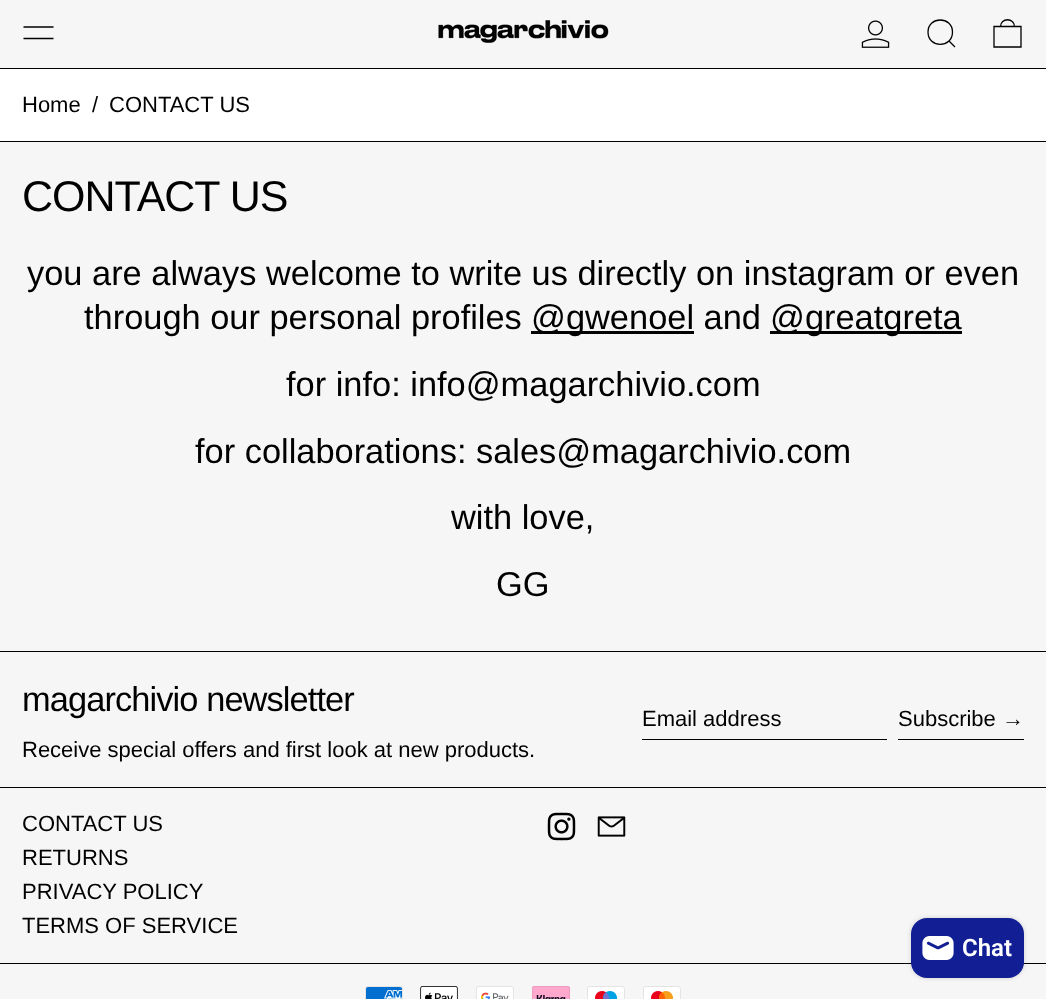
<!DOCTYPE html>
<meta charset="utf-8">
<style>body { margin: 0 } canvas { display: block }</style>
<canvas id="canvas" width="1046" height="999"></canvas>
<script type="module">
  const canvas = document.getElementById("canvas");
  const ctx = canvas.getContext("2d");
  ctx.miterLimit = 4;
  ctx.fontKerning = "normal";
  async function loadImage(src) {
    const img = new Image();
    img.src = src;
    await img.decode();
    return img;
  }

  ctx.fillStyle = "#ffffff";
  ctx.fillRect(0, 0, 1046, 999);
  ctx.fillStyle = "#f6f6f6";
  ctx.fillRect(0, 0, 1046, 68);
  ctx.fillStyle = "#000000";
  ctx.fillRect(0, 68, 1046, 1);
  ctx.beginPath();
  ctx.moveTo(23.5, 27);
  ctx.lineTo(53.5, 27);
  ctx.moveTo(23.5, 38.5);
  ctx.lineTo(53.5, 38.5);
  ctx.strokeStyle = "#000000";
  ctx.lineWidth = 1.3;
  ctx.stroke();
  ctx.drawImage(await loadImage("img1.png"), 438, 20, 171, 23);
  ctx.drawImage(await loadImage("img2.png"), 861, 20, 29, 28);
  ctx.beginPath();
  ctx.moveTo(928, 32);
  ctx.bezierCurveTo(928, 48.5, 952.5, 48.5, 952.5, 32);
  ctx.bezierCurveTo(952.5, 16, 928, 16, 928, 32);
  ctx.closePath();
  ctx.moveTo(949, 41);
  ctx.lineTo(955, 47);
  ctx.stroke();
  ctx.beginPath();
  ctx.moveTo(994, 26.5);
  ctx.lineTo(1021, 26.5);
  ctx.lineTo(1021, 47);
  ctx.lineTo(994, 47);
  ctx.closePath();
  ctx.moveTo(1014.5, 26.5);
  ctx.bezierCurveTo(1014.5, 17.5, 1000.5, 17.5, 1000.5, 26.5);
  ctx.stroke();
  ctx.fillRect(0, 141, 1046, 1);
  ctx.font = "22px Liberation Sans";
  ctx.fillText("Home", 22, 112);
  ctx.fillText("/", 92, 112);
  ctx.fillText("CONTACT US", 109, 112);
  ctx.fillStyle = "#f6f6f6";
  ctx.fillRect(0, 142, 1046, 509);
  ctx.fillStyle = "#000000";
  ctx.fillRect(0, 651, 1046, 1);
  ctx.letterSpacing = "-1px";
  ctx.font = "43px Liberation Sans";
  ctx.fillText("CONTACT US", 22, 211);
  ctx.letterSpacing = "0px";
  ctx.font = "34.4px Liberation Sans";
  ctx.fillText("you are always welcome to write us directly on instagram or even", 27, 285);
  ctx.fillText("through our personal profiles", 84, 329);
  ctx.fillRect(531, 331, 163, 3);
  ctx.fillText("@gwenoel and", 531, 329);
  ctx.fillRect(770, 331, 192, 3);
  ctx.fillText("@greatgreta", 770, 329);
  ctx.fillText("for info: info@magarchivio.com", 286, 396);
  ctx.fillText("for collaborations: sales@magarchivio.com", 195, 463);
  ctx.fillText("with love,", 451, 529);
  ctx.fillText("GG", 496, 596);
  ctx.fillStyle = "#f6f6f6";
  ctx.fillRect(0, 652, 1046, 347);
  ctx.fillStyle = "#000000";
  ctx.fillRect(0, 787, 1046, 1);
  ctx.letterSpacing = "-0.9px";
  ctx.fillText("magarchivio newsletter", 22, 711);
  ctx.letterSpacing = "0px";
  ctx.font = "22px Liberation Sans";
  ctx.fillText("Receive special offers and first look at new products.", 22, 757);
  ctx.fillRect(642, 739, 245, 1);
  ctx.fillText("Email address", 642, 726);
  ctx.fillRect(898, 739, 126, 1);
  ctx.fillText("Subscribe →", 898, 726);
  ctx.fillRect(0, 963, 1046, 1);
  ctx.fillText("CONTACT US", 22, 831);
  ctx.fillText("RETURNS", 22, 865);
  ctx.fillText("PRIVACY POLICY", 22, 899);
  ctx.fillText("TERMS OF SERVICE", 22, 933);
  ctx.drawImage(await loadImage("img3.png"), 547, 812, 29, 29);
  ctx.drawImage(await loadImage("img4.png"), 597, 816, 29, 21);
  ctx.drawImage(await loadImage("img5.png"), 365, 986, 38, 13);
  ctx.drawImage(await loadImage("img6.png"), 420, 986, 38, 13);
  ctx.drawImage(await loadImage("img7.png"), 476, 986, 38, 13);
  ctx.drawImage(await loadImage("img8.png"), 532, 986, 38, 13);
  ctx.drawImage(await loadImage("img9.png"), 587, 986, 38, 13);
  ctx.drawImage(await loadImage("img10.png"), 643, 986, 38, 13);
  ctx.fillStyle = "rgba(0, 0, 0, 0.15)";
  ctx.filter = "blur(2.5px)";
  ctx.beginPath();
  ctx.roundRect(911, 918, 113, 60, 16);
  ctx.fill();
  ctx.filter = "none";
  ctx.fillStyle = "#121f94";
  ctx.beginPath();
  ctx.roundRect(911, 918, 113, 60, 16);
  ctx.fill();
  ctx.drawImage(await loadImage("img11.png"), 922, 936, 32, 24);
  ctx.font = "600 24px Roboto";
  ctx.fillStyle = "#ffffff";
  ctx.fillText("Chat", 962, 956);
</script>
